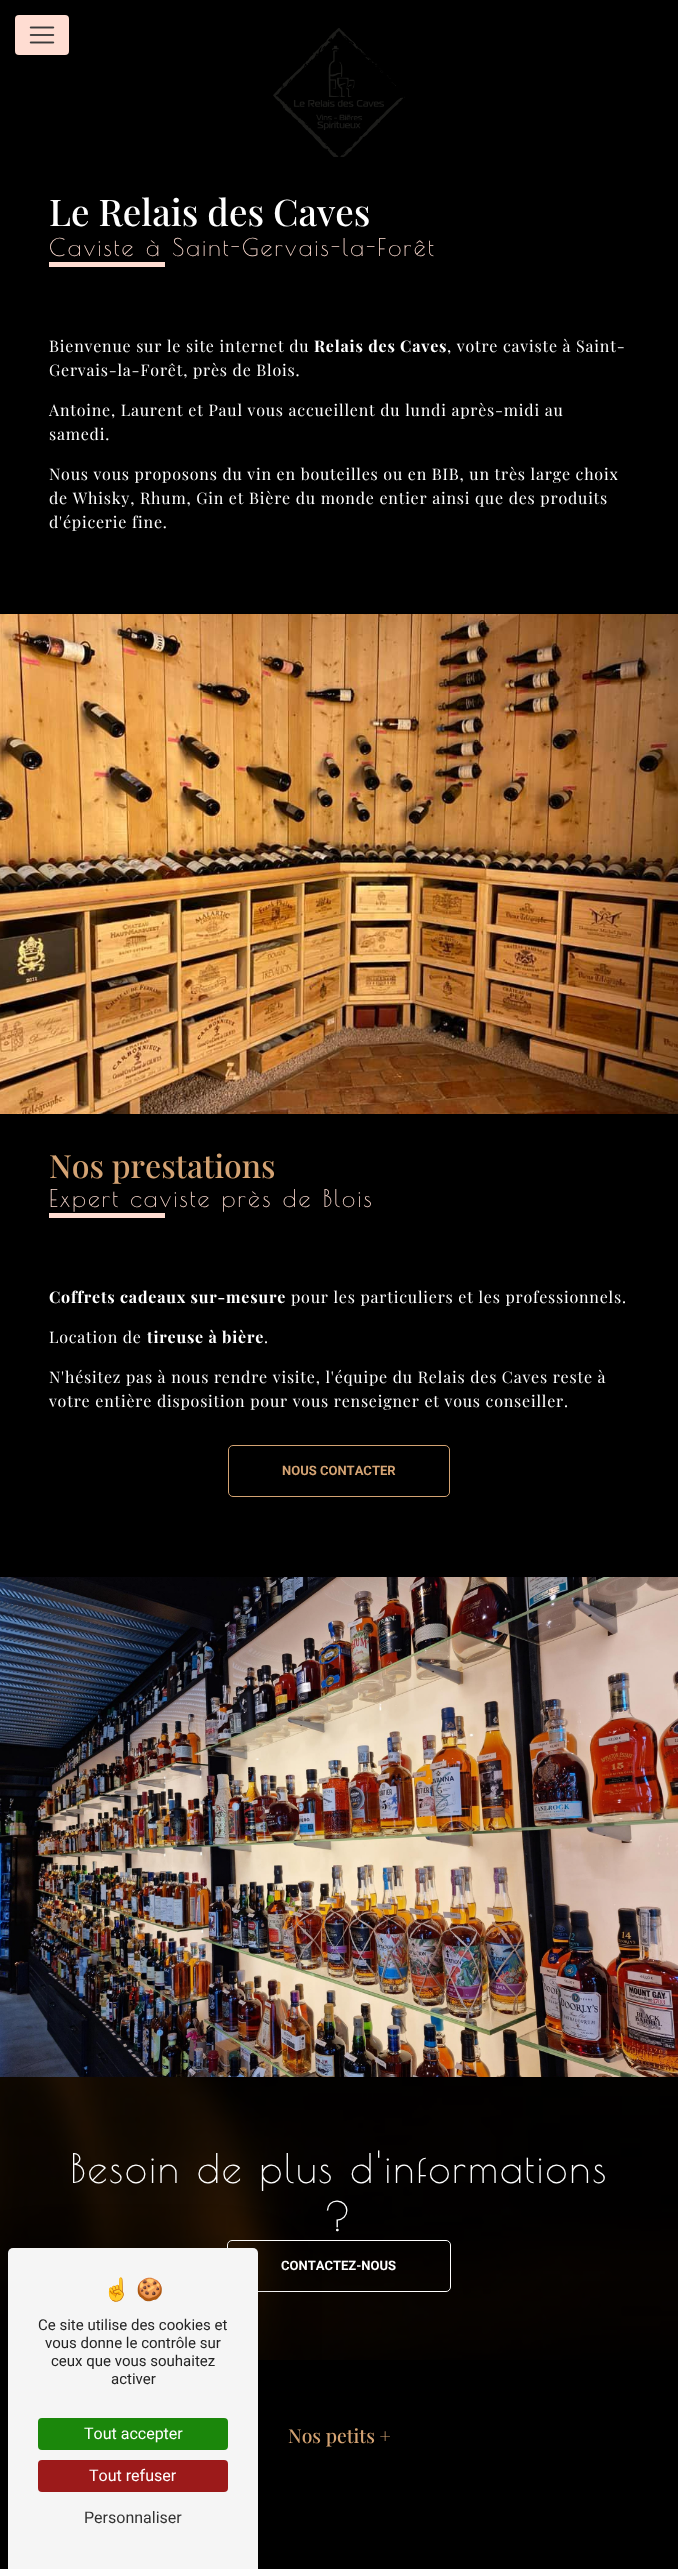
<!DOCTYPE html>
<meta charset="utf-8">
<style>body { margin: 0 } canvas { display: block }</style>
<canvas id="canvas" width="678" height="2569"></canvas>
<script type="module">
  const canvas = document.getElementById("canvas");
  const ctx = canvas.getContext("2d");
  ctx.miterLimit = 4;
  ctx.fontKerning = "none";
  async function loadImage(src) {
    const img = new Image();
    img.src = src;
    await img.decode();
    return img;
  }

  ctx.fillStyle = "#000000";
  ctx.fillRect(0, 0, 678, 2569);
  ctx.fillStyle = "#ffddd2";
  ctx.beginPath();
  ctx.roundRect(15, 15, 54, 40, 4);
  ctx.fill();
  ctx.drawImage(await loadImage("img1.png"), 29, 26, 26, 18);
  ctx.drawImage(await loadImage("img2.png"), 273, 28, 132, 129);
  ctx.font = "500 36.75px Playfair Display";
  ctx.fillStyle = "#ffffff";
  ctx.fillText("Le Relais des Caves", 49, 226);
  ctx.letterSpacing = "2px";
  ctx.font = "24px Poiret One";
  ctx.fillStyle = "#ffddd2";
  ctx.fillText("Caviste à Saint-Gervais-la-Forêt", 49, 256);
  ctx.fillRect(49, 262, 116, 5);
  ctx.letterSpacing = "0.8px";
  ctx.font = "16px Playfair Display";
  ctx.fillStyle = "#ffffff";
  ctx.fillText("Bienvenue sur le site internet du", 49, 352);
  ctx.font = "bold 16px Playfair Display";
  ctx.fillText("Relais des Caves", 314, 352);
  ctx.font = "16px Playfair Display";
  ctx.fillText(", votre caviste à Saint-", 447, 352);
  ctx.fillText("Gervais-la-Forêt, près de Blois.", 49, 376);
  ctx.fillText("Antoine, Laurent et Paul vous accueillent du lundi après-midi au", 49, 416);
  ctx.fillText("samedi.", 49, 440);
  ctx.fillText("Nous vous proposons du vin en bouteilles ou en BIB, un très large choix", 49, 480);
  ctx.fillText("de Whisky, Rhum, Gin et Bière du monde entier ainsi que des produits", 49, 504);
  ctx.fillText("d'épicerie fine.", 49, 528);
  ctx.drawImage(await loadImage("img3.png"), 0, 614, 678, 500);
  ctx.letterSpacing = "0px";
  ctx.font = "500 32px Playfair Display";
  ctx.fillStyle = "#d4a373";
  ctx.fillText("Nos prestations", 49, 1178);
  ctx.letterSpacing = "2px";
  ctx.font = "24px Poiret One";
  ctx.fillStyle = "#ffddd2";
  ctx.fillText("Expert caviste près de Blois", 49, 1207);
  ctx.fillRect(49, 1213, 116, 5);
  ctx.letterSpacing = "0.8px";
  ctx.font = "bold 16px Playfair Display";
  ctx.fillStyle = "#ffffff";
  ctx.fillText("Coffrets cadeaux sur-mesure", 49, 1303);
  ctx.font = "16px Playfair Display";
  ctx.fillText("pour les particuliers et les professionnels.", 291, 1303);
  ctx.fillText("Location de", 49, 1343);
  ctx.font = "bold 16px Playfair Display";
  ctx.fillText("tireuse à bière", 147, 1343);
  ctx.font = "16px Playfair Display";
  ctx.fillText(".", 264, 1343);
  ctx.fillText("N'hésitez pas à nous rendre visite, l'équipe du Relais des Caves reste à", 49, 1383);
  ctx.fillText("votre entière disposition pour vous renseigner et vous conseiller.", 49, 1407);
  ctx.beginPath();
  ctx.roundRect(228.5, 1445.5, 221, 51, 4.5);
  ctx.strokeStyle = "#d4a373";
  ctx.stroke();
  ctx.letterSpacing = "0px";
  ctx.font = "bold 13px Roboto";
  ctx.fillStyle = "#d4a373";
  ctx.fillText("NOUS CONTACTER", 282, 1475);
  ctx.drawImage(await loadImage("img4.png"), 0, 1577, 678, 500);
  ctx.drawImage(await loadImage("img5.png"), 0, 2077, 678, 283);
  ctx.letterSpacing = "2px";
  ctx.font = "40px Poiret One";
  ctx.fillStyle = "#ffffff";
  ctx.fillText("Besoin de plus d'informations", 70, 2183);
  ctx.fillText("?", 325, 2231);
  ctx.beginPath();
  ctx.roundRect(227.5, 2240.5, 223, 51, 4.5);
  ctx.strokeStyle = "#ffffff";
  ctx.stroke();
  ctx.letterSpacing = "0px";
  ctx.font = "bold 13px Roboto";
  ctx.fillText("CONTACTEZ-NOUS", 281, 2270);
  ctx.font = "500 19.25px Playfair Display";
  ctx.fillStyle = "#d4a373";
  ctx.fillText("Nos petits +", 288, 2443);
  ctx.fillStyle = "rgba(0, 0, 0, 0.25)";
  ctx.filter = "blur(30px)";
  ctx.beginPath();
  ctx.roundRect(8, 2268, 250, 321, 5);
  ctx.fill();
  ctx.filter = "none";
  ctx.fillStyle = "#f5f5f5";
  ctx.beginPath();
  ctx.roundRect(8, 2248, 250, 321, [5, 5, 0, 0]);
  ctx.fill();
  ctx.font = "22px Noto Color Emoji";
  ctx.fillStyle = "#242424";
  ctx.fillText("☝️", 103, 2297);
  ctx.fillText("🍪", 136, 2297);
  ctx.font = "15px Roboto";
  ctx.fillText("Ce site utilise des cookies et", 38, 2330);
  ctx.fillText("vous donne le contrôle sur", 45, 2348);
  ctx.fillText("ceux que vous souhaitez", 51, 2366);
  ctx.fillText("activer", 111, 2384);
  ctx.fillStyle = "#1b870b";
  ctx.beginPath();
  ctx.roundRect(38, 2418, 190, 32, 4);
  ctx.fill();
  ctx.font = "16px Roboto";
  ctx.fillStyle = "#ffffff";
  ctx.fillText("Tout accepter", 84, 2439);
  ctx.fillStyle = "#9c1a1a";
  ctx.beginPath();
  ctx.roundRect(38, 2460, 190, 32, 4);
  ctx.fill();
  ctx.fillStyle = "#ffffff";
  ctx.fillText("Tout refuser", 89, 2481);
  ctx.fillStyle = "#333333";
  ctx.fillText("Personnaliser", 84, 2523);
</script>
